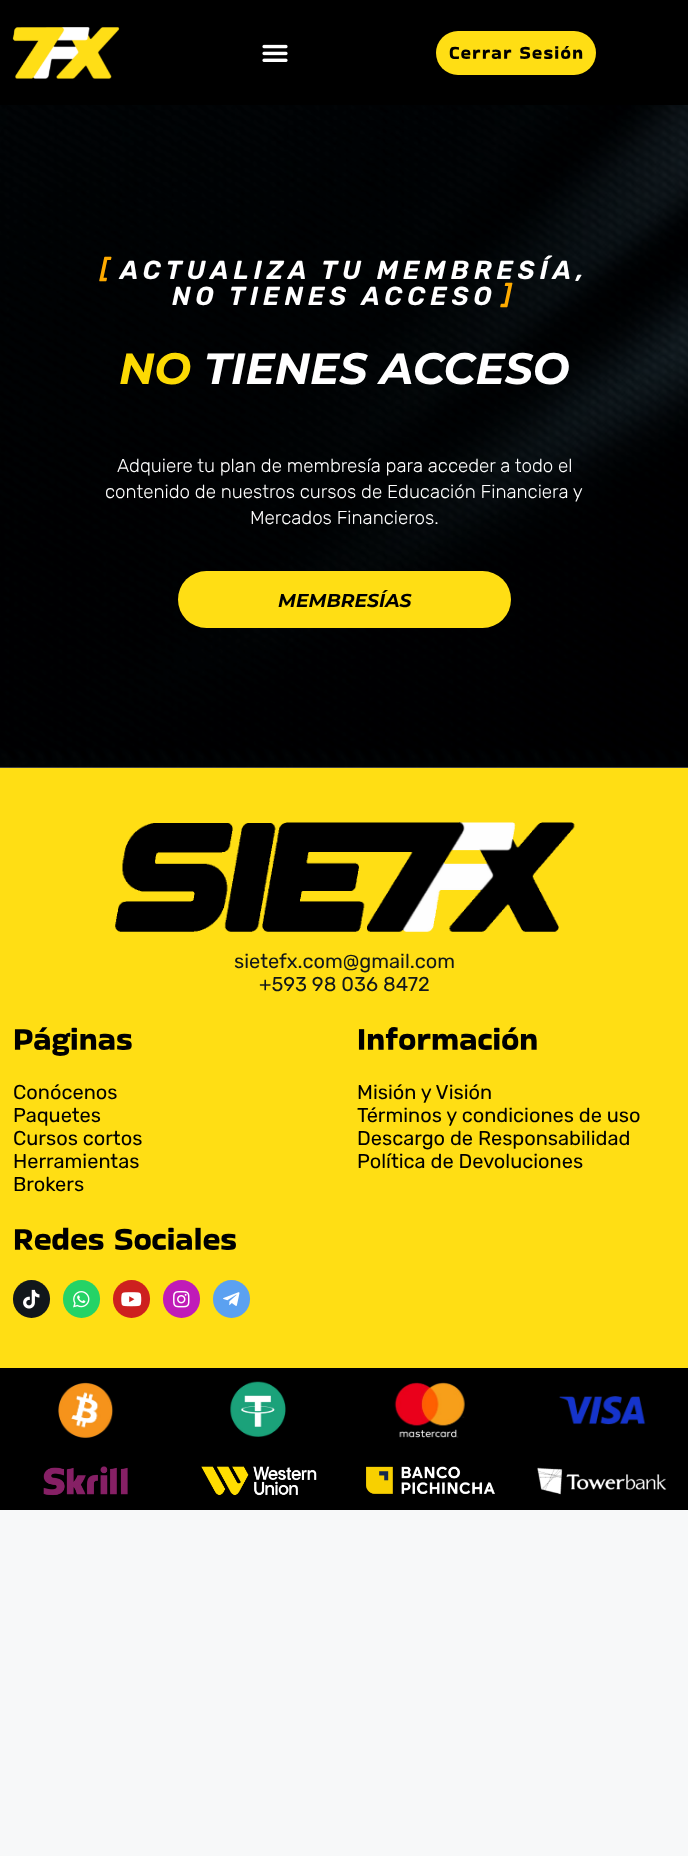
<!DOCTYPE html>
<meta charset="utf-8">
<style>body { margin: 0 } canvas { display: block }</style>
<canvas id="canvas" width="688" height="1856"></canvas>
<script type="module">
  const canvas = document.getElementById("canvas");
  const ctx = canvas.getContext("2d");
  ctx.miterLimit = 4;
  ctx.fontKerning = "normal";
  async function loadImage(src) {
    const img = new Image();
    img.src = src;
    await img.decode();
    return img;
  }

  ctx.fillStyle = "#f7f8f9";
  ctx.fillRect(0, 0, 688, 1856);
  ctx.fillStyle = "#7c7c7d";
  ctx.fillRect(0, 767, 688, 1);
  ctx.fillStyle = "#000000";
  ctx.fillRect(0, 0, 688, 105);
  ctx.drawImage(await loadImage("img1.png"), 12, 27, 108, 52);
  ctx.drawImage(await loadImage("img2.png"), 262, 44, 26, 18);
  ctx.fillStyle = "#ffde14";
  ctx.beginPath();
  ctx.roundRect(436, 31, 160, 44, 22);
  ctx.fill();
  ctx.letterSpacing = "1.25px";
  ctx.font = "18.75px Bakbak One";
  ctx.fillStyle = "#000000";
  ctx.fillText("Cerrar Sesión", 449, 59);
  ctx.drawImage(await loadImage("img3.png"), 0, 105, 688, 663);
  ctx.letterSpacing = "5px";
  ctx.font = "italic 600 26px Rubik";
  ctx.fillStyle = "#ffab00";
  ctx.fillText("[", 100, 277);
  ctx.fillStyle = "#ffffff";
  ctx.fillText("ACTUALIZA TU MEMBRESÍA,", 120, 279);
  ctx.fillText("NO TIENES ACCESO", 172, 305);
  ctx.fillStyle = "#ffab00";
  ctx.fillText("]", 502, 303);
  ctx.letterSpacing = "0px";
  ctx.font = "italic bold 43.75px Montserrat";
  ctx.fillStyle = "#fcda03";
  ctx.fillText("NO", 119, 384);
  ctx.fillStyle = "#ffffff";
  ctx.fillText("TIENES ACCESO", 204, 384);
  ctx.font = "300 18.75px Rubik";
  ctx.fillText("Adquiere tu plan de membresía para acceder a todo el", 117, 472);
  ctx.fillText("contenido de nuestros cursos de Educación Financiera y", 105, 498);
  ctx.fillText("Mercados Financieros.", 250, 524);
  ctx.fillStyle = "#ffde14";
  ctx.beginPath();
  ctx.roundRect(178, 571, 333, 57, 28.5);
  ctx.fill();
  ctx.font = "italic bold 18.75px Montserrat";
  ctx.fillStyle = "#000000";
  ctx.fillText("MEMBRESÍAS", 278, 607);
  ctx.fillStyle = "#ffde14";
  ctx.fillRect(0, 768, 688, 600);
  ctx.drawImage(await loadImage("img4.png"), 115, 822, 460, 110);
  ctx.font = "20px Rubik";
  ctx.fillStyle = "#11171b";
  ctx.fillText("sietefx.com@gmail.com", 234, 968);
  ctx.fillText("+593 98 036 8472", 259, 991);
  ctx.font = "32.5px Bakbak One";
  ctx.fillStyle = "#000000";
  ctx.fillText("Páginas", 13, 1050);
  ctx.font = "20px Rubik";
  ctx.fillText("Conócenos", 13, 1099);
  ctx.fillText("Paquetes", 13, 1122);
  ctx.fillText("Cursos cortos", 13, 1145);
  ctx.fillText("Herramientas", 13, 1168);
  ctx.fillText("Brokers", 13, 1191);
  ctx.font = "32.5px Bakbak One";
  ctx.fillText("Información", 357, 1050);
  ctx.font = "20px Rubik";
  ctx.fillText("Misión y Visión", 357, 1099);
  ctx.fillText("Términos y condiciones de uso", 357, 1122);
  ctx.fillText("Descargo de Responsabilidad", 357, 1145);
  ctx.fillText("Política de Devoluciones", 357, 1168);
  ctx.font = "32.5px Bakbak One";
  ctx.fillText("Redes Sociales", 13, 1250);
  ctx.fillStyle = "#11171b";
  ctx.beginPath();
  ctx.roundRect(13, 1280, 37, 38, 18.5);
  ctx.fill();
  ctx.drawImage(await loadImage("img5.png"), 23, 1289, 17, 20);
  ctx.fillStyle = "#25d366";
  ctx.beginPath();
  ctx.roundRect(63, 1280, 37, 38, 18.5);
  ctx.fill();
  ctx.drawImage(await loadImage("img6.png"), 73, 1291, 17, 17);
  ctx.fillStyle = "#cd201f";
  ctx.beginPath();
  ctx.roundRect(113, 1280, 37, 38, 18.5);
  ctx.fill();
  ctx.drawImage(await loadImage("img7.png"), 121, 1292, 21, 15);
  ctx.fillStyle = "#c01bb8";
  ctx.beginPath();
  ctx.roundRect(163, 1280, 37, 38, 18.5);
  ctx.fill();
  ctx.drawImage(await loadImage("img8.png"), 173, 1291, 17, 17);
  ctx.fillStyle = "#5ba1f1";
  ctx.beginPath();
  ctx.roundRect(213, 1280, 37, 38, 18.5);
  ctx.fill();
  ctx.drawImage(await loadImage("img9.png"), 223, 1292, 17, 14);
  ctx.fillStyle = "#000000";
  ctx.fillRect(0, 1368, 688, 142);
  ctx.drawImage(await loadImage("img10.png"), 58, 1382, 56, 56);
  ctx.drawImage(await loadImage("img11.png"), 230, 1381, 56, 56);
  ctx.drawImage(await loadImage("img12.png"), 394, 1382, 71, 56);
  ctx.drawImage(await loadImage("img13.png"), 559, 1396, 87, 29);
  ctx.drawImage(await loadImage("img14.png"), 43, 1466, 85, 30);
  ctx.drawImage(await loadImage("img15.png"), 201, 1466, 116, 30);
  ctx.drawImage(await loadImage("img16.png"), 366, 1466, 129, 28);
  ctx.drawImage(await loadImage("img17.png"), 537, 1467, 130, 28);
</script>
